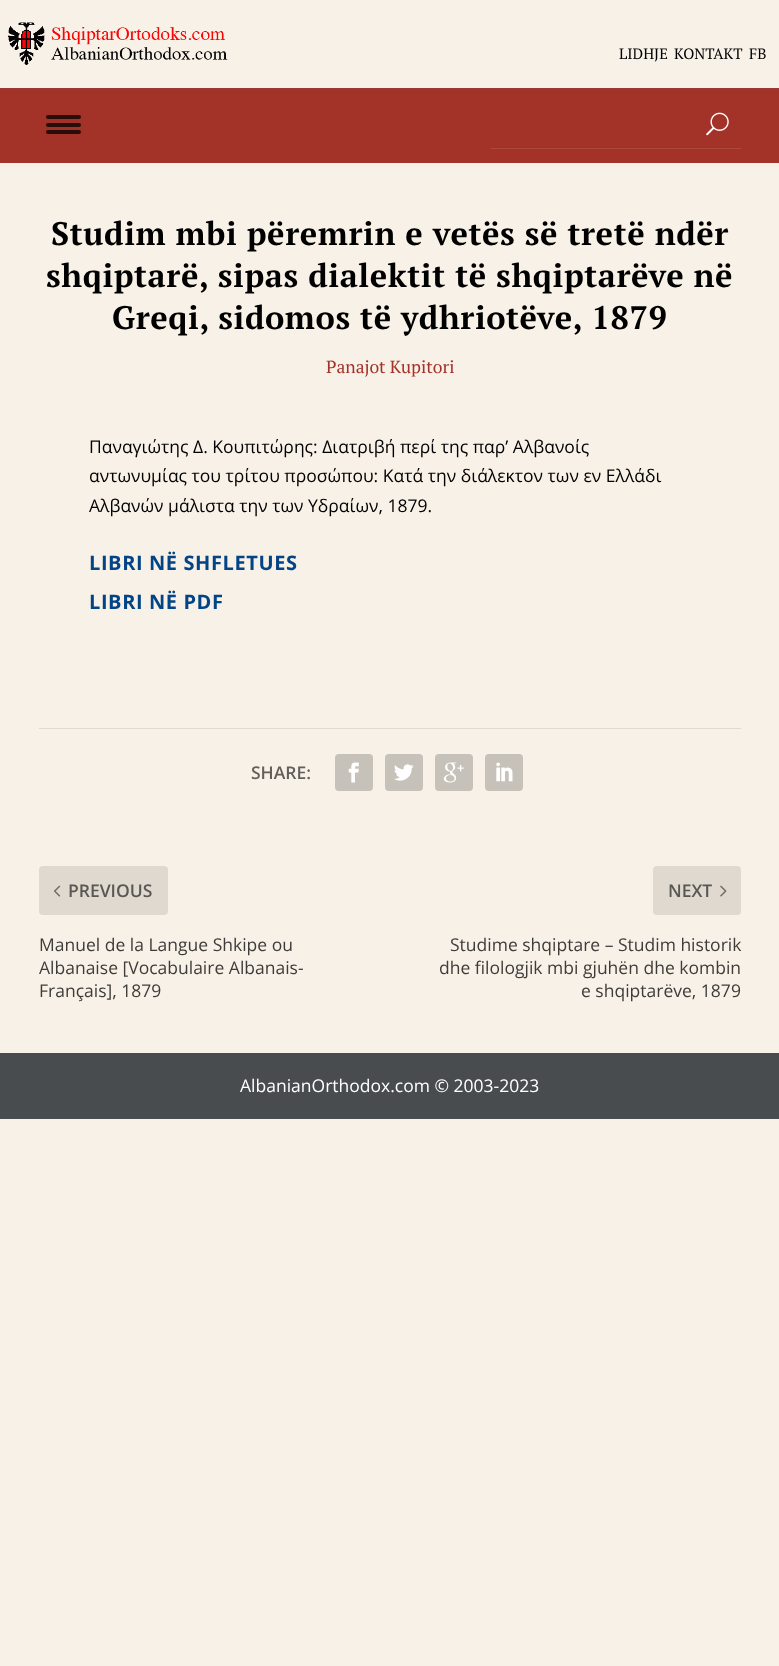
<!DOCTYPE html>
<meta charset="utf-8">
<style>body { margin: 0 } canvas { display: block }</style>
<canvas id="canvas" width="779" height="1666"></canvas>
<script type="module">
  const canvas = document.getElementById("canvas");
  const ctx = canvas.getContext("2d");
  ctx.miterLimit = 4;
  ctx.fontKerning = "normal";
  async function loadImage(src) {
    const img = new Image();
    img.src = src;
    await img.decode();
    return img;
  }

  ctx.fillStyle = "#f8f1e7";
  ctx.fillRect(0, 0, 779, 1666);
  ctx.fillStyle = "#a33229";
  ctx.fillRect(0, 88, 779, 75);
  ctx.fillStyle = "rgba(110, 102, 93, 0.3)";
  ctx.filter = "blur(2px)";
  ctx.beginPath();
  ctx.rect(0, 0, 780, 88);
  ctx.fill();
  ctx.filter = "none";
  ctx.fillStyle = "#f8f1e7";
  ctx.fillRect(0, 0, 779, 88);
  ctx.drawImage(await loadImage("img1.png"), 8, 22, 220, 43);
  ctx.font = "15px PT Serif";
  ctx.fillStyle = "#000000";
  ctx.fillText("LIDHJE", 619, 59);
  ctx.fillText("KONTAKT", 674, 59);
  ctx.fillText("FB", 749, 59);
  ctx.fillStyle = "#290d0a";
  ctx.beginPath();
  ctx.roundRect(46, 115, 35, 4, 2);
  ctx.fill();
  ctx.beginPath();
  ctx.roundRect(46, 123, 35, 4, 2);
  ctx.fill();
  ctx.beginPath();
  ctx.roundRect(46, 130, 35, 4, 2);
  ctx.fill();
  ctx.fillStyle = "#ac473e";
  ctx.fillRect(491, 148, 250, 1);
  ctx.drawImage(await loadImage("img2.png"), 706, 112, 23, 24);
  ctx.letterSpacing = "0.6px";
  ctx.font = "bold 32.5px PT Serif";
  ctx.fillStyle = "#000000";
  ctx.fillText("Studim mbi përemrin e vetës së tretë ndër", 51, 245);
  ctx.fillText("shqiptarë, sipas dialektit të shqiptarëve në", 46, 287);
  ctx.fillText("Greqi, sidomos të ydhriotëve, 1879", 112, 329);
  ctx.letterSpacing = "0px";
  ctx.font = "17.5px PT Serif";
  ctx.fillStyle = "#a33229";
  ctx.fillText("Panajot Kupitori", 326, 373);
  ctx.font = "17.5px Open Sans";
  ctx.fillStyle = "#000000";
  ctx.fillText("Παναγιώτης Δ. Κουπιτώρης: Διατριβή περί της παρ’ Αλβανοίς", 89, 453);
  ctx.fillText("αντωνυμίας του τρίτου προσώπου: Κατά την διάλεκτον των εν Ελλάδι", 89, 482);
  ctx.fillText("Αλβανών μάλιστα την των Υδραίων, 1879.", 89, 512);
  ctx.letterSpacing = "0.6px";
  ctx.font = "bold 20px Open Sans";
  ctx.fillStyle = "#034486";
  ctx.fillText("LIBRI NË SHFLETUES", 89, 570);
  ctx.fillText("LIBRI NË PDF", 89, 609);
  ctx.fillStyle = "#dfd9d0";
  ctx.fillRect(39, 728, 702, 1);
  ctx.letterSpacing = "0px";
  ctx.font = "600 17.5px Open Sans";
  ctx.fillStyle = "#63605c";
  ctx.fillText("SHARE:", 251, 779);
  ctx.fillStyle = "#c6c1b9";
  ctx.beginPath();
  ctx.roundRect(335, 754, 38, 37, 4);
  ctx.fill();
  ctx.drawImage(await loadImage("img3.png"), 348, 762, 11, 21);
  ctx.beginPath();
  ctx.roundRect(385, 754, 38, 37, 4);
  ctx.fill();
  ctx.drawImage(await loadImage("img4.png"), 394, 764, 20, 17);
  ctx.beginPath();
  ctx.roundRect(435, 754, 38, 37, 4);
  ctx.fill();
  ctx.drawImage(await loadImage("img5.png"), 443, 762, 21, 21);
  ctx.beginPath();
  ctx.roundRect(485, 754, 38, 37, 4);
  ctx.fill();
  ctx.drawImage(await loadImage("img6.png"), 496, 762, 17, 20);
  ctx.fillStyle = "#dfd9d0";
  ctx.beginPath();
  ctx.roundRect(39, 866, 129, 49, 4);
  ctx.fill();
  ctx.drawImage(await loadImage("img7.png"), 54, 885, 7, 12);
  ctx.fillStyle = "#595753";
  ctx.fillText("PREVIOUS", 68, 897);
  ctx.font = "17.5px Open Sans";
  ctx.fillStyle = "#3e3c3a";
  ctx.fillText("Manuel de la Langue Shkipe ou", 39, 951);
  ctx.fillText("Albanaise [Vocabulaire Albanais-", 39, 974);
  ctx.fillText("Français], 1879", 39, 997);
  ctx.fillStyle = "#dfd9d0";
  ctx.beginPath();
  ctx.roundRect(653, 866, 88, 49, 4);
  ctx.fill();
  ctx.font = "600 17.5px Open Sans";
  ctx.fillStyle = "#595753";
  ctx.fillText("NEXT", 668, 897);
  ctx.drawImage(await loadImage("img8.png"), 720, 885, 7, 12);
  ctx.font = "17.5px Open Sans";
  ctx.fillStyle = "#3e3c3a";
  ctx.fillText("Studime shqiptare – Studim historik", 450, 951);
  ctx.fillText("dhe filologjik mbi gjuhën dhe kombin", 439, 974);
  ctx.fillText("e shqiptarëve, 1879", 581, 997);
  ctx.fillStyle = "#484c4f";
  ctx.fillRect(0, 1053, 779, 66);
  ctx.fillStyle = "#ffffff";
  ctx.fillText("AlbanianOrthodox.com © 2003-2023", 240, 1092);
</script>
